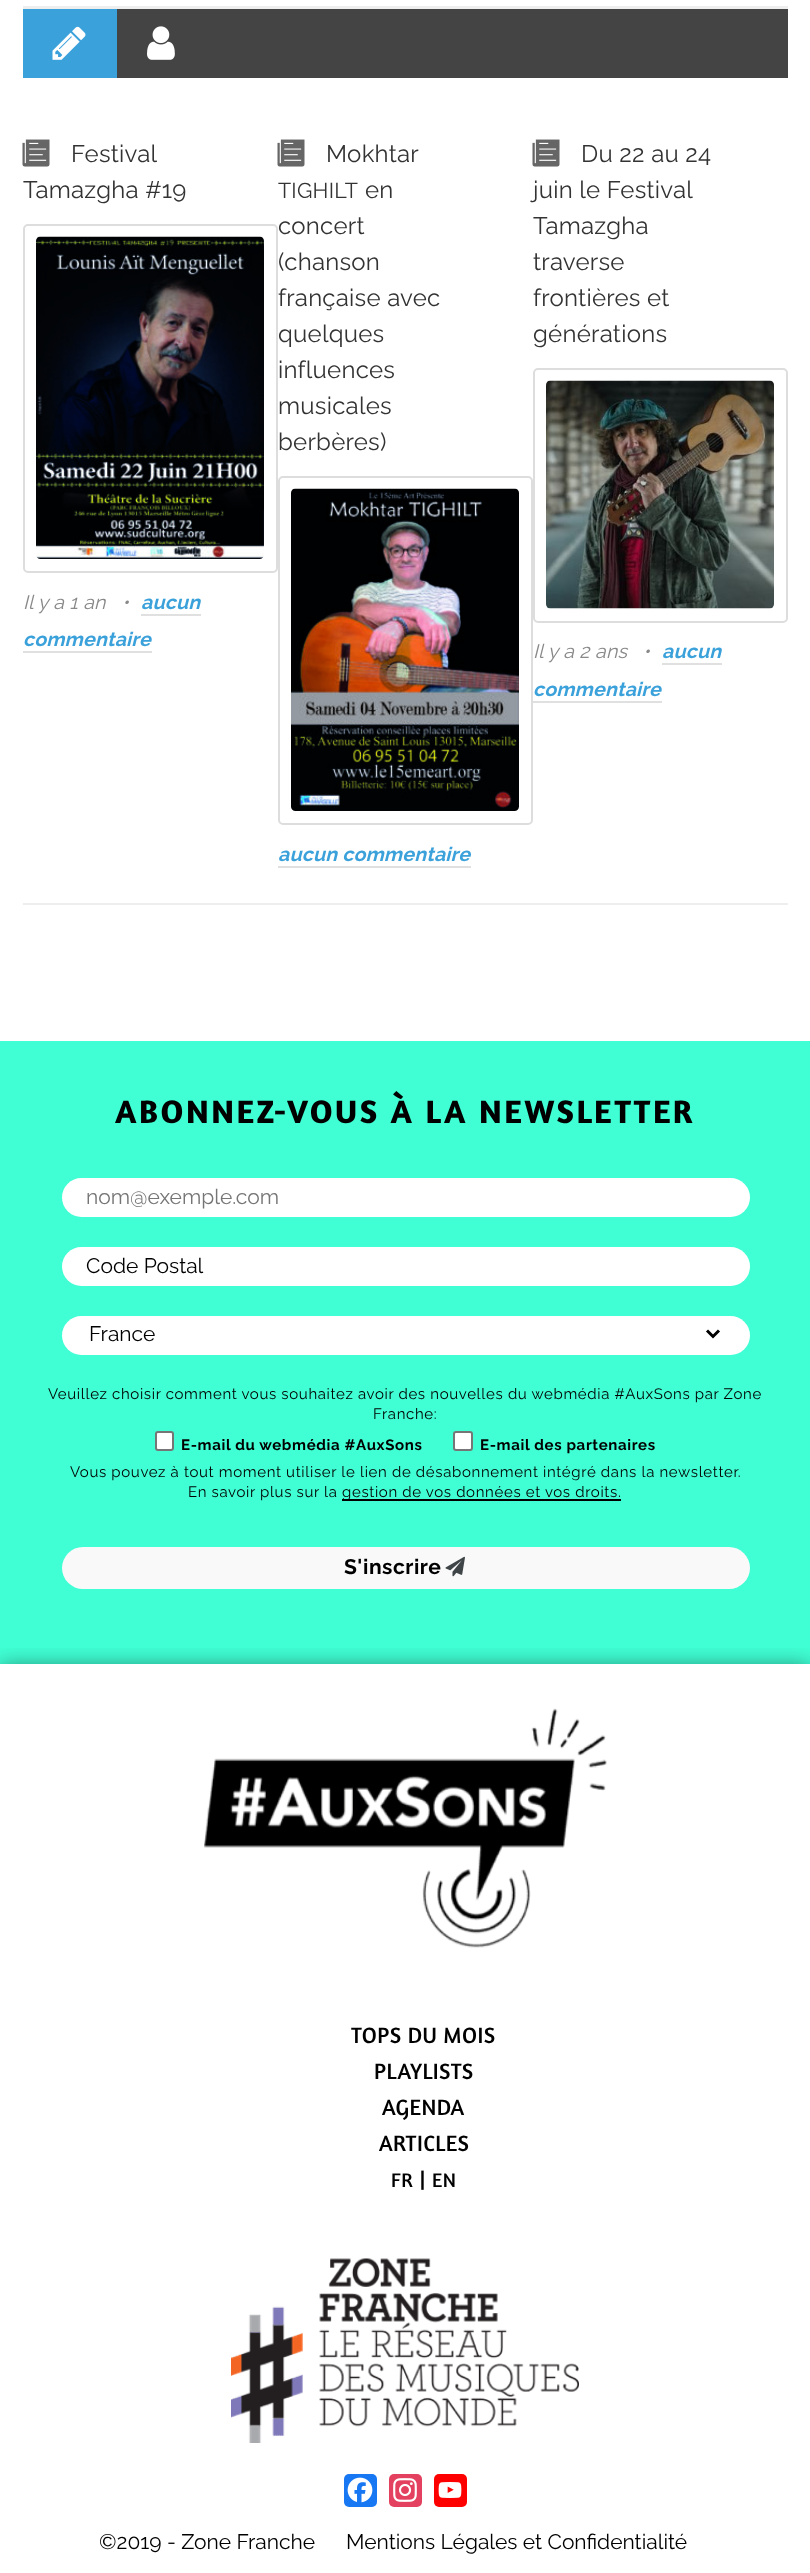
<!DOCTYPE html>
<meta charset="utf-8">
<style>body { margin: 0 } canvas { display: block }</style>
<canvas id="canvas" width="810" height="2573"></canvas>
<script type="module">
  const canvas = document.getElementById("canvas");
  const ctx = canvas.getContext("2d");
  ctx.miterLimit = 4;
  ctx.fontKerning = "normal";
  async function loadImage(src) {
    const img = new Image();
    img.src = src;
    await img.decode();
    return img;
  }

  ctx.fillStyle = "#ffffff";
  ctx.fillRect(0, 0, 810, 2573);
  ctx.fillStyle = "#eeeeee";
  ctx.fillRect(23, 6, 765, 3);
  ctx.fillStyle = "#444444";
  ctx.fillRect(117, 9, 671, 69);
  ctx.fillStyle = "#3ba1da";
  ctx.fillRect(23, 9, 94, 69);
  ctx.drawImage(await loadImage("img1.png"), 52, 26, 34, 34);
  ctx.drawImage(await loadImage("img2.png"), 147, 26, 28, 34);
  ctx.fillStyle = "#eeeeee";
  ctx.fillRect(23, 903, 765, 2);
  ctx.drawImage(await loadImage("img3.png"), 22, 139, 28, 28);
  ctx.letterSpacing = "0.25px";
  ctx.font = "24px Raleway";
  ctx.fillStyle = "#333333";
  ctx.fillText("Festival", 71, 162);
  ctx.fillText("Tamazgha #19", 23, 198);
  ctx.beginPath();
  ctx.roundRect(24, 225, 253, 347, 4);
  ctx.strokeStyle = "#dddddd";
  ctx.lineWidth = 2;
  ctx.stroke();
  ctx.drawImage(await loadImage("img4.png"), 36, 236, 228, 323);
  ctx.font = "italic 19.5px Raleway";
  ctx.fillStyle = "#888888";
  ctx.fillText("Il y a 1 an", 23, 609);
  ctx.fillText("•", 122, 609);
  ctx.font = "italic bold 19.5px Raleway";
  ctx.fillStyle = "#3ba1da";
  ctx.fillText("aucun", 141, 609);
  ctx.fillStyle = "#e0e0e0";
  ctx.fillRect(141, 614, 60, 2);
  ctx.fillStyle = "#3ba1da";
  ctx.fillText("commentaire", 23, 646);
  ctx.fillStyle = "#e0e0e0";
  ctx.fillRect(23, 651, 129, 2);
  ctx.drawImage(await loadImage("img3.png"), 277, 139, 28, 28);
  ctx.font = "24px Raleway";
  ctx.fillStyle = "#333333";
  ctx.fillText("Mokhtar", 326, 162);
  ctx.font = "21.5px Raleway";
  ctx.fillText("TIGHILT", 278, 198);
  ctx.font = "24px Raleway";
  ctx.fillText("en", 365, 198);
  ctx.fillText("concert", 278, 234);
  ctx.fillText("(chanson", 278, 270);
  ctx.fillText("française avec", 278, 306);
  ctx.fillText("quelques", 278, 342);
  ctx.fillText("influences", 278, 378);
  ctx.fillText("musicales", 278, 414);
  ctx.fillText("berbères)", 278, 450);
  ctx.beginPath();
  ctx.roundRect(279, 477, 253, 347, 4);
  ctx.stroke();
  ctx.drawImage(await loadImage("img5.png"), 291, 488, 228, 323);
  ctx.font = "italic bold 19.5px Raleway";
  ctx.fillStyle = "#3ba1da";
  ctx.fillText("aucun commentaire", 278, 861);
  ctx.fillStyle = "#e0e0e0";
  ctx.fillRect(278, 866, 193, 2);
  ctx.drawImage(await loadImage("img3.png"), 532, 139, 28, 28);
  ctx.font = "24px Raleway";
  ctx.fillStyle = "#333333";
  ctx.fillText("Du 22 au 24", 581, 162);
  ctx.fillText("juin le Festival", 533, 198);
  ctx.fillText("Tamazgha", 533, 234);
  ctx.fillText("traverse", 533, 270);
  ctx.fillText("frontières et", 533, 306);
  ctx.fillText("générations", 533, 342);
  ctx.beginPath();
  ctx.roundRect(534, 369, 253, 253, 4);
  ctx.stroke();
  ctx.drawImage(await loadImage("img6.png"), 546, 380, 228, 229);
  ctx.font = "italic 19.5px Raleway";
  ctx.fillStyle = "#888888";
  ctx.fillText("Il y a 2 ans", 533, 658);
  ctx.fillText("•", 643, 658);
  ctx.font = "italic bold 19.5px Raleway";
  ctx.fillStyle = "#3ba1da";
  ctx.fillText("aucun", 662, 658);
  ctx.fillStyle = "#e0e0e0";
  ctx.fillRect(662, 663, 60, 2);
  ctx.fillStyle = "#3ba1da";
  ctx.fillText("commentaire", 533, 696);
  ctx.fillStyle = "#e0e0e0";
  ctx.fillRect(533, 701, 129, 2);
  ctx.fillStyle = "#40ffd4";
  ctx.fillRect(0, 1041, 810, 623);
  ctx.letterSpacing = "2.55px";
  ctx.font = "bold 33px Amaranth";
  ctx.fillStyle = "#000000";
  ctx.fillText("ABONNEZ-VOUS À LA NEWSLETTER", 115, 1123);
  ctx.fillStyle = "#ffffff";
  ctx.beginPath();
  ctx.roundRect(62, 1178, 688, 39, 19.5);
  ctx.fill();
  ctx.letterSpacing = "0px";
  ctx.font = "21px Raleway";
  ctx.fillStyle = "#757575";
  ctx.fillText("nom@exemple.com", 86, 1204);
  ctx.fillStyle = "#ffffff";
  ctx.beginPath();
  ctx.roundRect(62, 1247, 688, 39, 19.5);
  ctx.fill();
  ctx.fillStyle = "#000000";
  ctx.fillText("Code Postal", 86, 1273);
  ctx.fillStyle = "#ffffff";
  ctx.beginPath();
  ctx.roundRect(62, 1316, 688, 39, 19.5);
  ctx.fill();
  ctx.beginPath();
  ctx.moveTo(707, 1330.5);
  ctx.lineTo(713, 1336.5);
  ctx.lineTo(719, 1330.5);
  ctx.strokeStyle = "#000000";
  ctx.lineWidth = 3;
  ctx.stroke();
  ctx.fillStyle = "#000000";
  ctx.fillText("France", 89, 1341);
  ctx.letterSpacing = "0.65px";
  ctx.font = "15px Raleway";
  ctx.fillText("Veuillez choisir comment vous souhaitez avoir des nouvelles du webmédia #AuxSons par Zone", 48, 1399);
  ctx.fillText("Franche:", 373, 1419);
  ctx.fillStyle = "#ffffff";
  ctx.beginPath();
  ctx.roundRect(156, 1432, 17, 18, 2);
  ctx.fill();
  ctx.strokeStyle = "#767676";
  ctx.lineWidth = 2;
  ctx.stroke();
  ctx.font = "bold 15px Raleway";
  ctx.fillStyle = "#000000";
  ctx.fillText("E-mail du webmédia #AuxSons", 181, 1450);
  ctx.fillStyle = "#ffffff";
  ctx.beginPath();
  ctx.roundRect(454, 1432, 18, 18, 2);
  ctx.fill();
  ctx.stroke();
  ctx.fillStyle = "#000000";
  ctx.fillText("E-mail des partenaires", 480, 1450);
  ctx.font = "15px Raleway";
  ctx.fillText("Vous pouvez à tout moment utiliser le lien de désabonnement intégré dans la newsletter.", 70, 1477);
  ctx.fillText("En savoir plus sur la", 188, 1497);
  ctx.fillRect(342, 1499, 279, 2);
  ctx.fillText("gestion de vos données et vos droits.", 342, 1497);
  ctx.fillStyle = "#f9f9f9";
  ctx.beginPath();
  ctx.roundRect(62, 1547, 688, 42, 21);
  ctx.fill();
  ctx.letterSpacing = "0.5px";
  ctx.font = "bold 21px Raleway";
  ctx.fillStyle = "#000000";
  ctx.fillText("S'inscrire", 344, 1574);
  ctx.drawImage(await loadImage("img7.png"), 445, 1556, 20, 21);
  ctx.save();
  ctx.beginPath();
  ctx.rect(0, 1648, 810, 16);
  ctx.clip();
  ctx.fillStyle = "rgba(0, 0, 0, 0.5)";
  ctx.filter = "blur(11px)";
  ctx.beginPath();
  ctx.rect(0, 1667, 810, 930);
  ctx.fill();
  ctx.filter = "none";
  ctx.restore();
  ctx.drawImage(await loadImage("img8.png"), 204, 1708, 403, 240);
  ctx.letterSpacing = "0.4px";
  ctx.font = "22.5px Amaranth";
  ctx.fillText("TOPS DU MOIS", 351, 2043);
  ctx.fillText("PLAYLISTS", 374, 2079);
  ctx.fillText("AGENDA", 382, 2115);
  ctx.fillText("ARTICLES", 379, 2151);
  ctx.font = "20px Amaranth";
  ctx.fillText("FR", 391, 2187);
  ctx.font = "22.5px Amaranth";
  ctx.fillText("|", 419, 2187);
  ctx.font = "20px Amaranth";
  ctx.fillText("EN", 432, 2187);
  ctx.drawImage(await loadImage("img9.png"), 231, 2258, 348, 185);
  ctx.fillStyle = "#1877f2";
  ctx.beginPath();
  ctx.roundRect(344, 2474, 33, 33, 5);
  ctx.fill();
  ctx.drawImage(await loadImage("img10.png"), 347, 2477, 26, 26);
  ctx.fillStyle = "#e4405f";
  ctx.beginPath();
  ctx.roundRect(389, 2474, 33, 33, 5);
  ctx.fill();
  ctx.drawImage(await loadImage("img11.png"), 393, 2478, 24, 24);
  ctx.fillStyle = "#ff0000";
  ctx.beginPath();
  ctx.roundRect(434, 2474, 33, 33, 5);
  ctx.fill();
  ctx.drawImage(await loadImage("img12.png"), 438, 2482, 24, 16);
  ctx.letterSpacing = "0px";
  ctx.font = "21px Raleway";
  ctx.fillStyle = "#000000";
  ctx.fillText("©2019 - Zone Franche", 99, 2549);
  ctx.fillText("Mentions Légales et Confidentialité", 346, 2549);
</script>
